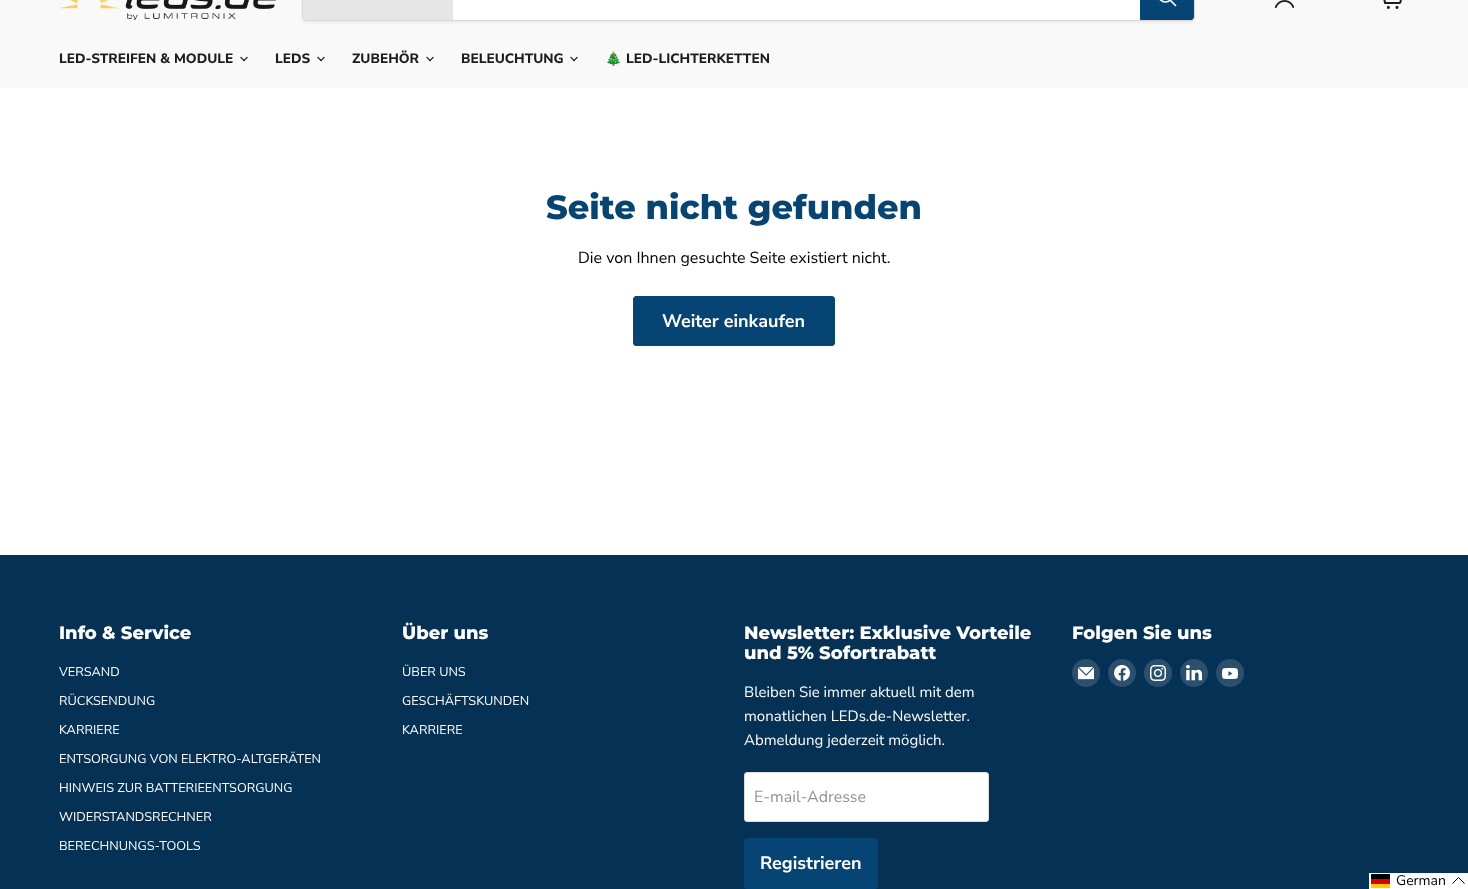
<!DOCTYPE html>
<meta charset="utf-8">
<style>body { margin: 0 } canvas { display: block }</style>
<canvas id="canvas" width="1468" height="889"></canvas>
<script type="module">
  const canvas = document.getElementById("canvas");
  const ctx = canvas.getContext("2d");
  ctx.miterLimit = 4;
  ctx.fontKerning = "normal";
  async function loadImage(src) {
    const img = new Image();
    img.src = src;
    await img.decode();
    return img;
  }

  ctx.fillStyle = "#ffffff";
  ctx.fillRect(0, 0, 1468, 889);
  ctx.fillStyle = "#f9f9f9";
  ctx.fillRect(0, 0, 1468, 88);
  ctx.drawImage(await loadImage("img1.png"), 59, 0, 217, 20);
  ctx.fillStyle = "rgba(128, 128, 128, 0.11)";
  ctx.filter = "blur(1.5px)";
  ctx.beginPath();
  ctx.roundRect(302, -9, 893, 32, 4);
  ctx.fill();
  ctx.filter = "none";
  ctx.beginPath();
  ctx.roundRect(302.5, -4.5, 892, 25, 3.5);
  ctx.strokeStyle = "rgba(128, 128, 128, 0.2)";
  ctx.stroke();
  ctx.fillStyle = "#e6e6e6";
  ctx.beginPath();
  ctx.moveTo(306, -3);
  ctx.lineTo(453, -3);
  ctx.lineTo(453, 20);
  ctx.lineTo(306, 20);
  ctx.bezierCurveTo(304.5, 20, 303, 18.5, 303, 17);
  ctx.lineTo(303, 0);
  ctx.bezierCurveTo(303, -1.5, 304.5, -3, 306, -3);
  ctx.closePath();
  ctx.fill();
  ctx.fillStyle = "#ffffff";
  ctx.fillRect(453, 0, 687, 20);
  ctx.fillStyle = "#064474";
  ctx.beginPath();
  ctx.moveTo(1140.5, -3.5);
  ctx.lineTo(1191, -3.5);
  ctx.bezierCurveTo(1192.5, -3.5, 1193.5, -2.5, 1193.5, -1);
  ctx.lineTo(1193.5, 17);
  ctx.bezierCurveTo(1193.5, 18.5, 1192.5, 19.5, 1191, 19.5);
  ctx.lineTo(1140.5, 19.5);
  ctx.closePath();
  ctx.fill();
  ctx.strokeStyle = "#064474";
  ctx.stroke();
  ctx.beginPath();
  ctx.moveTo(1175.5, 5.5);
  ctx.lineTo(1170.5, 0.5);
  ctx.strokeStyle = "#ffffff";
  ctx.lineWidth = 1.7;
  ctx.lineCap = "round";
  ctx.stroke();
  ctx.beginPath();
  ctx.arc(1165.5, -5, 7, 0, Math.PI * 2);
  ctx.stroke();
  ctx.drawImage(await loadImage("img2.png"), 1274, 0, 20, 9);
  ctx.drawImage(await loadImage("img3.png"), 1383, 0, 19, 9);
  ctx.font = "800 13.6px Nunito Sans";
  ctx.fillStyle = "#1d1d1d";
  ctx.fillText("LED-STREIFEN & MODULE", 59, 63);
  ctx.drawImage(await loadImage("img4.png"), 240, 56, 8, 6);
  ctx.fillText("LEDS", 275, 63);
  ctx.drawImage(await loadImage("img4.png"), 317, 56, 8, 6);
  ctx.fillText("ZUBEHÖR", 352, 63);
  ctx.drawImage(await loadImage("img4.png"), 426, 56, 8, 6);
  ctx.fillText("BELEUCHTUNG", 461, 63);
  ctx.drawImage(await loadImage("img4.png"), 570, 56, 8, 6);
  ctx.font = "bold 13.6px Noto Color Emoji";
  ctx.fillText("🎄", 605, 63);
  ctx.font = "800 13.6px Nunito Sans";
  ctx.fillText("LED-LICHTERKETTEN", 626, 63);
  ctx.font = "800 33.6px Montserrat";
  ctx.fillStyle = "#064474";
  ctx.fillText("Seite nicht gefunden", 546, 219);
  ctx.font = "16px Nunito Sans";
  ctx.fillStyle = "#000000";
  ctx.fillText("Die von Ihnen gesuchte Seite existiert nicht.", 578, 263);
  ctx.fillStyle = "#064474";
  ctx.beginPath();
  ctx.roundRect(633.5, 296.5, 201, 49, 2.5);
  ctx.fill();
  ctx.strokeStyle = "#064474";
  ctx.lineWidth = 1;
  ctx.stroke();
  ctx.font = "bold 18px Nunito Sans";
  ctx.fillStyle = "#ffffff";
  ctx.fillText("Weiter einkaufen", 662, 327);
  ctx.fillStyle = "#043154";
  ctx.fillRect(0, 555, 1468, 334);
  ctx.font = "800 18px Montserrat";
  ctx.fillStyle = "#ffffff";
  ctx.fillText("Info & Service", 59, 639);
  ctx.font = "12.75px Nunito Sans";
  ctx.fillText("VERSAND", 59, 676);
  ctx.fillText("RÜCKSENDUNG", 59, 705);
  ctx.fillText("KARRIERE", 59, 734);
  ctx.fillText("ENTSORGUNG VON ELEKTRO-ALTGERÄTEN", 59, 763);
  ctx.fillText("HINWEIS ZUR BATTERIEENTSORGUNG", 59, 792);
  ctx.fillText("WIDERSTANDSRECHNER", 59, 821);
  ctx.fillText("BERECHNUNGS-TOOLS", 59, 850);
  ctx.font = "800 18px Montserrat";
  ctx.fillText("Über uns", 402, 639);
  ctx.font = "12.75px Nunito Sans";
  ctx.fillText("ÜBER UNS", 402, 676);
  ctx.fillText("GESCHÄFTSKUNDEN", 402, 705);
  ctx.fillText("KARRIERE", 402, 734);
  ctx.font = "800 18px Montserrat";
  ctx.fillText("Newsletter: Exklusive Vorteile", 744, 639);
  ctx.fillText("und 5% Sofortrabatt", 744, 659);
  ctx.font = "15px Nunito Sans";
  ctx.fillText("Bleiben Sie immer aktuell mit dem", 744, 697);
  ctx.fillText("monatlichen LEDs.de-Newsletter.", 744, 721);
  ctx.fillText("Abmeldung jederzeit möglich.", 744, 745);
  ctx.beginPath();
  ctx.roundRect(744.5, 772.5, 244, 49, 2.5);
  ctx.fill();
  ctx.strokeStyle = "#dddddd";
  ctx.stroke();
  ctx.font = "16px Nunito Sans";
  ctx.fillStyle = "#949494";
  ctx.fillText("E-mail-Adresse", 754, 802);
  ctx.fillStyle = "#064474";
  ctx.beginPath();
  ctx.roundRect(744.5, 838.5, 133, 50, 2.5);
  ctx.fill();
  ctx.strokeStyle = "#064474";
  ctx.stroke();
  ctx.font = "bold 18px Nunito Sans";
  ctx.fillStyle = "#ffffff";
  ctx.fillText("Registrieren", 760, 869);
  ctx.font = "800 18px Montserrat";
  ctx.fillText("Folgen Sie uns", 1072, 639);
  ctx.fillStyle = "#2a506e";
  ctx.beginPath();
  ctx.arc(1086, 673, 14, 0, Math.PI * 2);
  ctx.fill();
  ctx.drawImage(await loadImage("img5.png"), 1078, 667, 16, 13);
  ctx.beginPath();
  ctx.arc(1122, 673, 14, 0, Math.PI * 2);
  ctx.fill();
  ctx.drawImage(await loadImage("img6.png"), 1114, 665, 16, 16);
  ctx.beginPath();
  ctx.arc(1158, 673, 14, 0, Math.PI * 2);
  ctx.fill();
  ctx.drawImage(await loadImage("img7.png"), 1150, 665, 16, 16);
  ctx.beginPath();
  ctx.arc(1194, 673, 14, 0, Math.PI * 2);
  ctx.fill();
  ctx.drawImage(await loadImage("img8.png"), 1186, 665, 16, 16);
  ctx.beginPath();
  ctx.arc(1230, 673, 14, 0, Math.PI * 2);
  ctx.fill();
  ctx.drawImage(await loadImage("img9.png"), 1222, 668, 16, 11);
  ctx.fillStyle = "#ffffff";
  ctx.fillRect(1369, 873, 99, 16);
  ctx.fillStyle = "#ffce00";
  ctx.fillRect(1371, 884, 19, 4);
  ctx.fillStyle = "#000000";
  ctx.fillRect(1371, 874, 19, 5);
  ctx.fillStyle = "#dd0000";
  ctx.fillRect(1371, 879, 19, 5);
  ctx.font = "14px Nunito Sans";
  ctx.fillStyle = "#000000";
  ctx.fillText("German", 1396, 885);
  ctx.beginPath();
  ctx.moveTo(1464.5, 883.5);
  ctx.lineTo(1458.5, 877.5);
  ctx.lineTo(1452.5, 883.5);
  ctx.strokeStyle = "#000000";
  ctx.lineCap = "butt";
  ctx.stroke();
</script>
